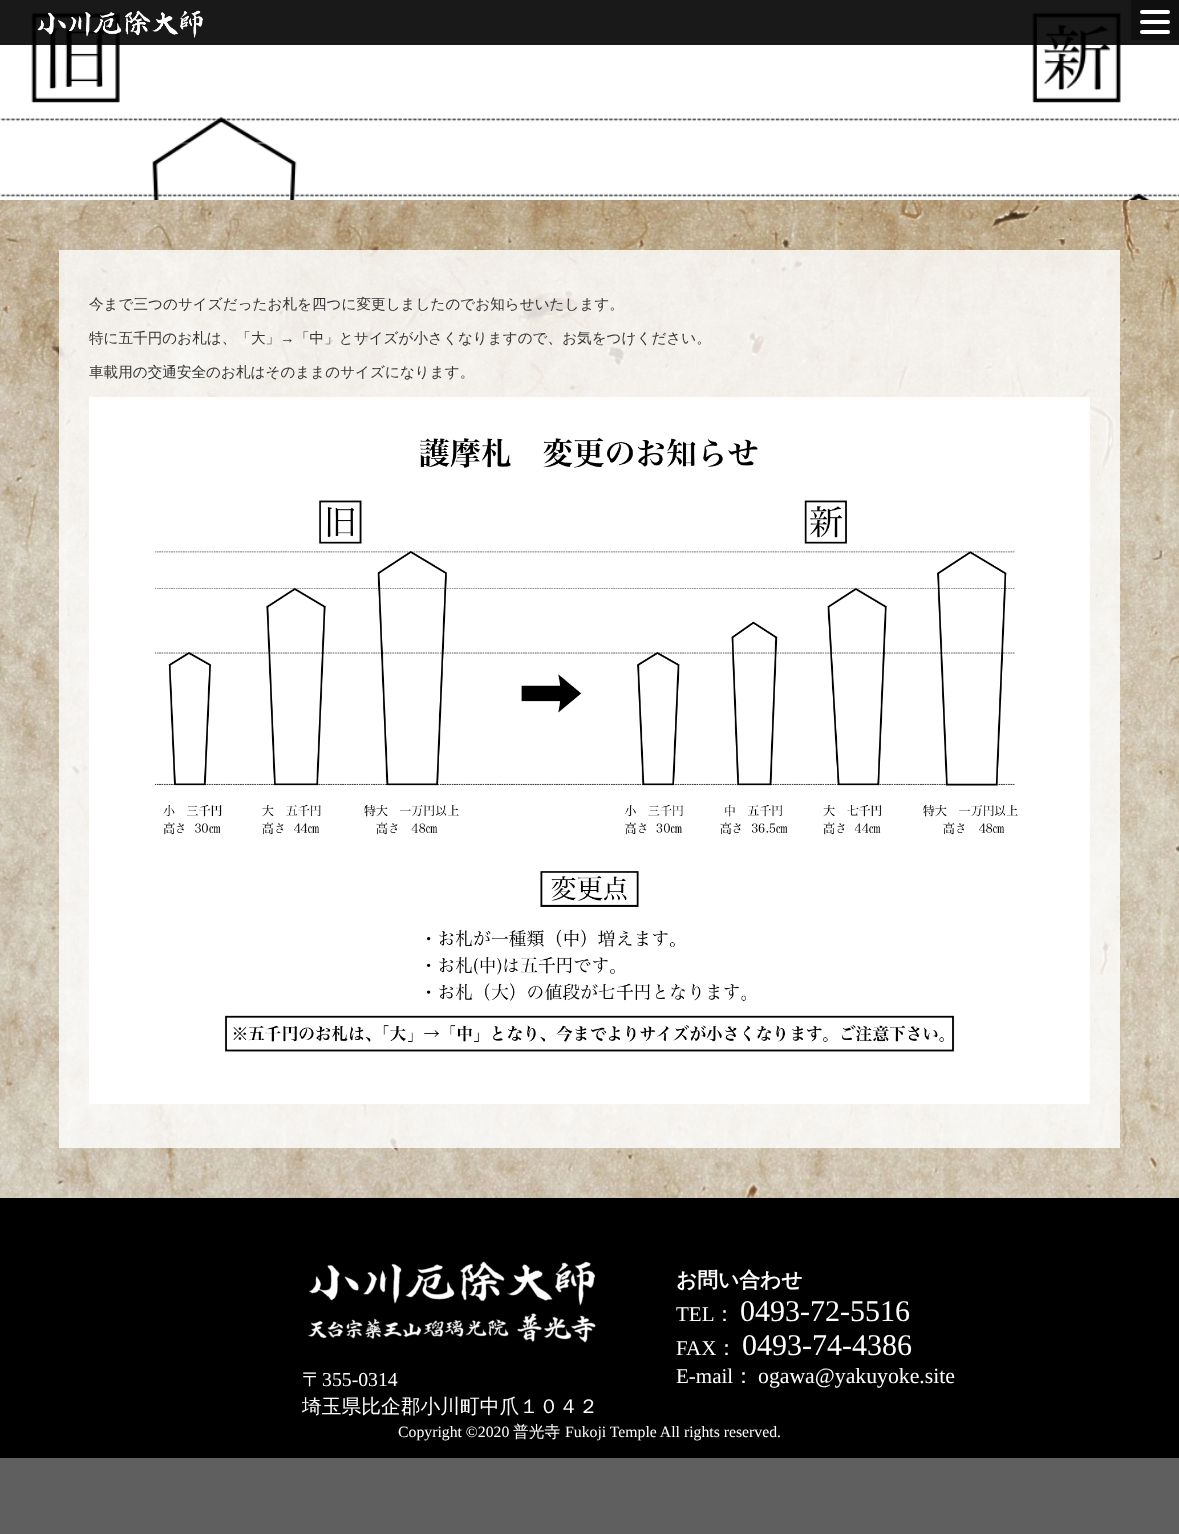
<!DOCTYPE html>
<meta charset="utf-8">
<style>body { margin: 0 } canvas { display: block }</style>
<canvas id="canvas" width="1179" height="1534"></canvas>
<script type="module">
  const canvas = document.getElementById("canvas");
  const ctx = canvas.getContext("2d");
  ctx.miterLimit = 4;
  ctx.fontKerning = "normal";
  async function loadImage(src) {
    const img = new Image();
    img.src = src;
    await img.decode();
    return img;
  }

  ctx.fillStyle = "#5f5f5f";
  ctx.fillRect(0, 0, 1179, 1534);
  ctx.drawImage(await loadImage("img1.png"), 0, 0, 1179, 200);
  ctx.fillStyle = "rgba(0, 0, 0, 0.9)";
  ctx.fillRect(0, 0, 1179, 45);
  ctx.drawImage(await loadImage("img2.png"), 37, 10, 166, 28);
  ctx.drawImage(await loadImage("img3.png"), 180, 142, 87, 2);
  ctx.drawImage(await loadImage("img4.png"), 0, 200, 1179, 998);
  ctx.fillStyle = "rgba(255, 255, 255, 0.8)";
  ctx.fillRect(59, 250, 1061, 898);
  ctx.font = "500 14.6px WenQuanYi Zen Hei";
  ctx.fillStyle = "#333333";
  ctx.fillText("今まで三つのサイズだったお札を四つに変更しましたのでお知らせいたします。", 89, 309);
  ctx.fillText("特に五千円のお札は、「大」", 89, 343);
  ctx.font = "14.6px Liberation Serif";
  ctx.fillText("→", 280, 343);
  ctx.font = "500 14.6px WenQuanYi Zen Hei";
  ctx.fillText("「中」とサイズが小さくなりますので、お気をつけください。", 295, 343);
  ctx.fillText("車載用の交通安全のお札はそのままのサイズになります。", 89, 377);
  ctx.drawImage(await loadImage("img5.png"), 89, 397, 1001, 707);
  ctx.fillStyle = "#000000";
  ctx.fillRect(0, 1198, 1179, 260);
  ctx.fillStyle = "#0f0f0f";
  ctx.fillRect(1131, 0, 48, 40);
  ctx.fillStyle = "#ffffff";
  ctx.beginPath();
  ctx.roundRect(1140, 10, 30, 4, 2);
  ctx.fill();
  ctx.beginPath();
  ctx.roundRect(1140, 20, 30, 4, 2);
  ctx.fill();
  ctx.beginPath();
  ctx.roundRect(1140, 30, 30, 4, 2);
  ctx.fill();
  ctx.drawImage(await loadImage("img6.png"), 307, 1261, 289, 82);
  ctx.font = "bold 20.75px WenQuanYi Zen Hei";
  ctx.fillText("お問い合わせ", 676, 1287);
  ctx.font = "21px Liberation Serif";
  ctx.fillText("TEL", 676, 1321);
  ctx.font = "500 21px WenQuanYi Zen Hei";
  ctx.fillText("：", 714, 1321);
  ctx.font = "30px Liberation Serif";
  ctx.fillText("0493-72-5516", 740, 1321);
  ctx.font = "21px Liberation Serif";
  ctx.fillText("FAX", 676, 1355);
  ctx.font = "500 21px WenQuanYi Zen Hei";
  ctx.fillText("：", 716, 1355);
  ctx.font = "30px Liberation Serif";
  ctx.fillText("0493-74-4386", 742, 1355);
  ctx.font = "21px Liberation Serif";
  ctx.fillText("E-mail", 676, 1383);
  ctx.font = "500 21px WenQuanYi Zen Hei";
  ctx.fillText("：", 733, 1383);
  ctx.font = "21.75px Liberation Serif";
  ctx.fillText("ogawa@yakuyoke.site", 758, 1383);
  ctx.font = "500 19.75px WenQuanYi Zen Hei";
  ctx.fillText("〒", 302, 1386);
  ctx.font = "19.75px Liberation Serif";
  ctx.fillText("355-0314", 322, 1386);
  ctx.font = "500 19.75px WenQuanYi Zen Hei";
  ctx.fillText("埼玉県比企郡小川町中爪１０４２", 302, 1413);
  ctx.font = "15.75px Liberation Serif";
  ctx.fillText("Copyright ©2020", 398, 1437);
  ctx.font = "500 15.75px WenQuanYi Zen Hei";
  ctx.fillText("普光寺", 513, 1437);
  ctx.font = "15.75px Liberation Serif";
  ctx.fillText("Fukoji Temple All rights reserved.", 565, 1437);
</script>
